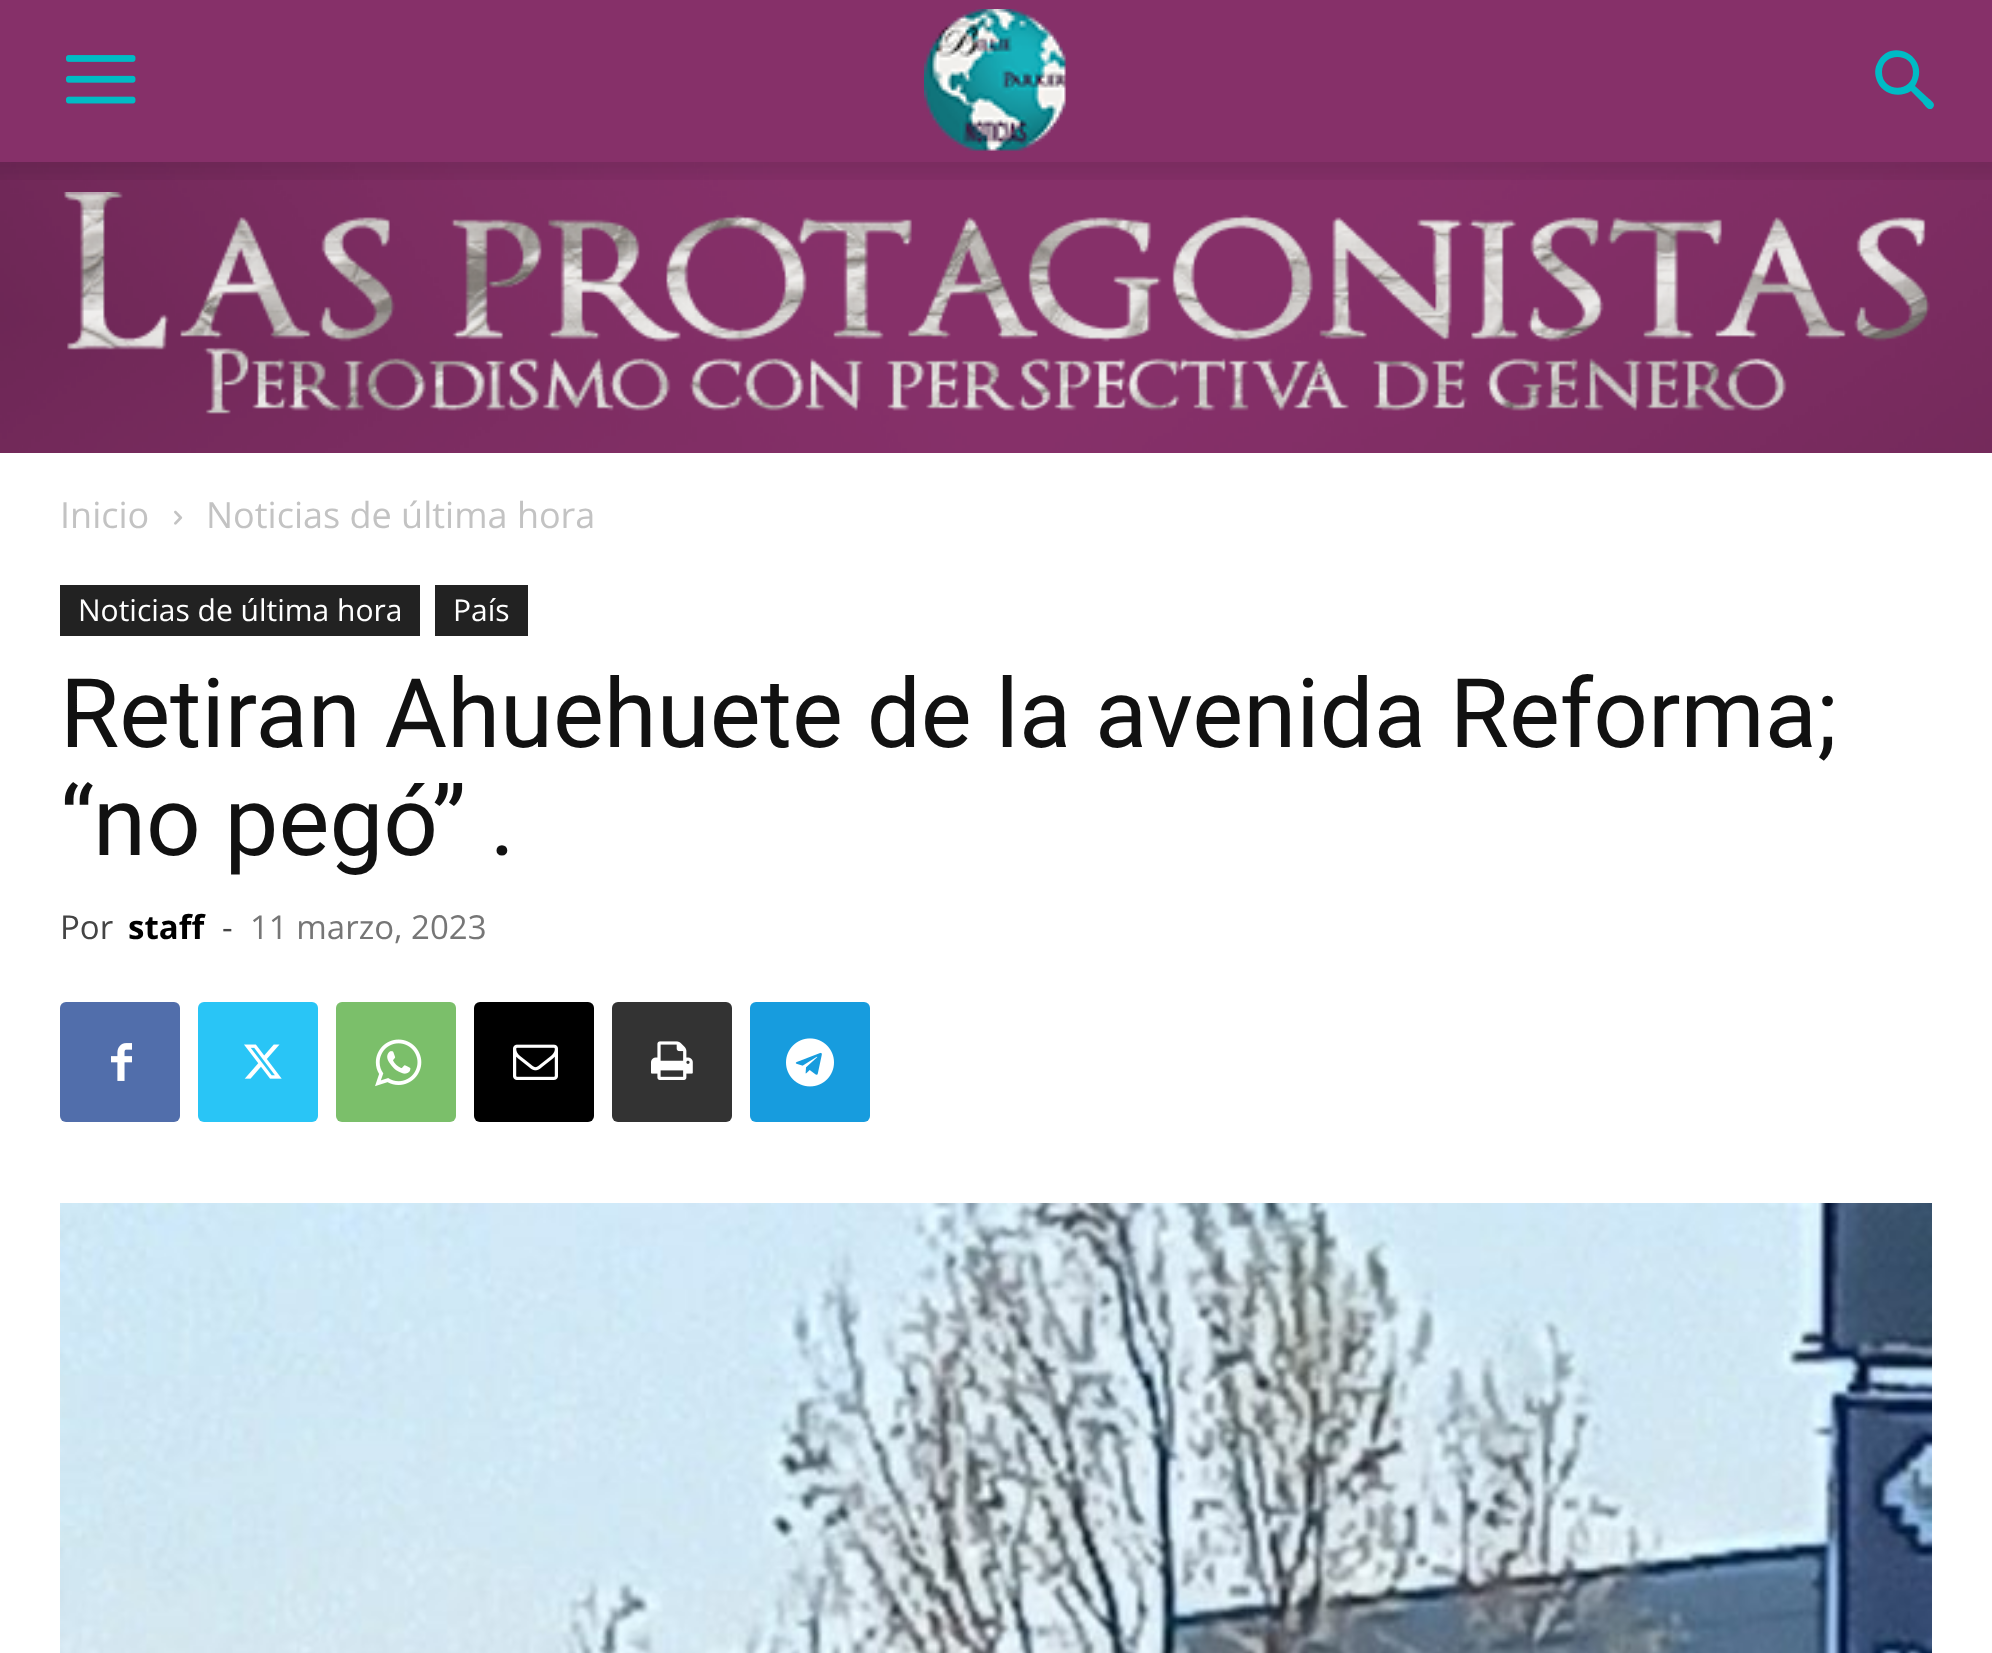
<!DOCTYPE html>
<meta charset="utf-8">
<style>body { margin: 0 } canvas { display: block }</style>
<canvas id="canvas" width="1992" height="1653"></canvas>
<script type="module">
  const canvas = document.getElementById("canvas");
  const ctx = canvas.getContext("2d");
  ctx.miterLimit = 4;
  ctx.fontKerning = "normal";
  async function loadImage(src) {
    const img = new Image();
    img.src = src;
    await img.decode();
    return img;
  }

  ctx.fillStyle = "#ffffff";
  ctx.fillRect(0, 0, 1992, 1653);
  ctx.fillStyle = "#863069";
  ctx.fillRect(0, 0, 1992, 162);
  ctx.drawImage(await loadImage("img1.png"), 66, 55, 70, 49);
  ctx.drawImage(await loadImage("img2.png"), 924, 9, 142, 142);
  ctx.fillStyle = "#00bbc5";
  ctx.beginPath();
  ctx.moveTo(1913, 72);
  ctx.bezierCurveTo(1913, 93, 1882, 93, 1882, 72);
  ctx.bezierCurveTo(1882, 52, 1913, 52, 1913, 72);
  ctx.closePath();
  ctx.moveTo(1934, 105);
  ctx.bezierCurveTo(1934, 102, 1929, 99, 1927, 97);
  ctx.lineTo(1915, 86);
  ctx.bezierCurveTo(1933, 56, 1889, 35, 1877, 64);
  ctx.bezierCurveTo(1874, 70, 1875, 77, 1878, 83);
  ctx.bezierCurveTo(1884, 95, 1900, 98, 1911, 91);
  ctx.lineTo(1922, 102);
  ctx.bezierCurveTo(1924, 104, 1927, 110, 1931, 109);
  ctx.bezierCurveTo(1932, 109, 1934, 107, 1934, 105);
  ctx.closePath();
  ctx.fill();
  ctx.drawImage(await loadImage("img4.png"), 0, 162, 1992, 291);
  ctx.drawImage(await loadImage("img3.png"), 0, 162, 1992, 18);
  ctx.drawImage(await loadImage("img5.png"), 63, 192, 1867, 222);
  ctx.font = "36px Open Sans";
  ctx.fillStyle = "#c3c3c3";
  ctx.fillText("Inicio", 60, 528);
  ctx.drawImage(await loadImage("img6.png"), 174, 510, 9, 15);
  ctx.fillText("Noticias de última hora", 206, 528);
  ctx.fillStyle = "#222222";
  ctx.fillRect(60, 585, 360, 51);
  ctx.font = "30px Open Sans";
  ctx.fillStyle = "#ffffff";
  ctx.fillText("Noticias de última hora", 78, 621);
  ctx.fillStyle = "#222222";
  ctx.fillRect(435, 585, 93, 51);
  ctx.fillStyle = "#ffffff";
  ctx.fillText("País", 453, 621);
  ctx.font = "96px Roboto";
  ctx.fillStyle = "#111111";
  ctx.fillText("Retiran Ahuehuete de la avenida Reforma;", 60, 747);
  ctx.fillText("“no pegó” .", 60, 855);
  ctx.font = "33px Open Sans";
  ctx.fillStyle = "#444444";
  ctx.fillText("Por", 60, 939);
  ctx.font = "bold 33px Open Sans";
  ctx.fillStyle = "#000000";
  ctx.fillText("staff", 128, 939);
  ctx.font = "33px Open Sans";
  ctx.fillStyle = "#444444";
  ctx.fillText("-", 222, 939);
  ctx.fillStyle = "#767676";
  ctx.fillText("11 marzo, 2023", 250, 939);
  ctx.fillStyle = "#516eab";
  ctx.beginPath();
  ctx.roundRect(60, 1002, 120, 120, 6);
  ctx.fill();
  ctx.drawImage(await loadImage("img7.png"), 111, 1043, 21, 38);
  ctx.fillStyle = "#29c5f6";
  ctx.beginPath();
  ctx.roundRect(198, 1002, 120, 120, 6);
  ctx.fill();
  ctx.drawImage(await loadImage("img8.png"), 244, 1044, 38, 35);
  ctx.fillStyle = "#7bbf6a";
  ctx.beginPath();
  ctx.roundRect(336, 1002, 120, 120, 6);
  ctx.fill();
  ctx.drawImage(await loadImage("img9.png"), 375, 1039, 47, 48);
  ctx.fillStyle = "#000000";
  ctx.beginPath();
  ctx.roundRect(474, 1002, 120, 120, 6);
  ctx.fill();
  ctx.drawImage(await loadImage("img10.png"), 513, 1044, 45, 36);
  ctx.fillStyle = "#333333";
  ctx.beginPath();
  ctx.roundRect(612, 1002, 120, 120, 6);
  ctx.fill();
  ctx.drawImage(await loadImage("img11.png"), 651, 1041, 42, 39);
  ctx.fillStyle = "#179cde";
  ctx.beginPath();
  ctx.roundRect(750, 1002, 120, 120, 6);
  ctx.fill();
  ctx.drawImage(await loadImage("img12.png"), 786, 1038, 48, 49);
  ctx.drawImage(await loadImage("img13.png"), 60, 1203, 1872, 450);
</script>
